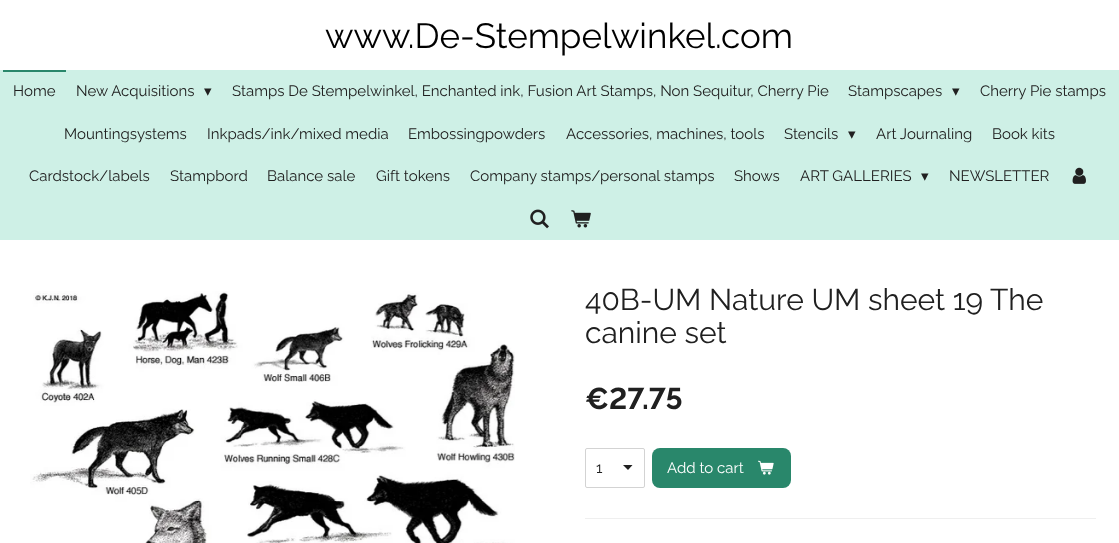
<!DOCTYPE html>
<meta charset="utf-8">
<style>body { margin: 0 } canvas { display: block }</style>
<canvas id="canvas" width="1119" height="543"></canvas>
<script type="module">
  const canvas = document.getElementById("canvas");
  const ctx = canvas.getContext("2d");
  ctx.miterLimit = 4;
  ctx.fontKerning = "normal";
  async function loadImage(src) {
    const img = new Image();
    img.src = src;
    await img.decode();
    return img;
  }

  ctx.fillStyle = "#ffffff";
  ctx.fillRect(0, 0, 1119, 543);
  ctx.font = "35px Raleway";
  ctx.fillStyle = "#000000";
  ctx.fillText("www.De-Stempelwinkel.com", 325, 48);
  ctx.fillStyle = "#cef0e6";
  ctx.fillRect(0, 70, 1119, 170);
  ctx.fillStyle = "#29876b";
  ctx.fillRect(3, 70, 63, 2);
  ctx.font = "15px Raleway";
  ctx.fillStyle = "#202020";
  ctx.fillText("Home", 13, 96);
  ctx.fillText("New Acquisitions", 76, 96);
  ctx.font = "15px DejaVu Sans";
  ctx.fillText("▾", 204, 96);
  ctx.font = "15px Raleway";
  ctx.fillText("Stamps De Stempelwinkel, Enchanted ink, Fusion Art Stamps, Non Sequitur, Cherry Pie", 232, 96);
  ctx.fillText("Stampscapes", 848, 96);
  ctx.font = "15px DejaVu Sans";
  ctx.fillText("▾", 952, 96);
  ctx.font = "15px Raleway";
  ctx.fillText("Cherry Pie stamps", 980, 96);
  ctx.fillText("Mountingsystems", 64, 139);
  ctx.fillText("Inkpads/ink/mixed media", 207, 139);
  ctx.fillText("Embossingpowders", 408, 139);
  ctx.fillText("Accessories, machines, tools", 566, 139);
  ctx.fillText("Stencils", 784, 139);
  ctx.font = "15px DejaVu Sans";
  ctx.fillText("▾", 848, 139);
  ctx.font = "15px Raleway";
  ctx.fillText("Art Journaling", 876, 139);
  ctx.fillText("Book kits", 992, 139);
  ctx.fillText("Cardstock/labels", 29, 181);
  ctx.fillText("Stampbord", 170, 181);
  ctx.fillText("Balance sale", 267, 181);
  ctx.fillText("Gift tokens", 376, 181);
  ctx.fillText("Company stamps/personal stamps", 470, 181);
  ctx.fillText("Shows", 734, 181);
  ctx.fillText("ART GALLERIES", 800, 181);
  ctx.font = "15px DejaVu Sans";
  ctx.fillText("▾", 921, 181);
  ctx.font = "15px Raleway";
  ctx.fillText("NEWSLETTER", 949, 181);
  ctx.drawImage(await loadImage("img1.png"), 1072, 167, 14, 17);
  ctx.drawImage(await loadImage("img2.png"), 530, 209, 19, 20);
  ctx.drawImage(await loadImage("img3.png"), 571, 210, 20, 18);
  ctx.drawImage(await loadImage("img4.png"), 30, 291, 485, 252);
  ctx.font = "30px Raleway";
  ctx.fillText("40B-UM Nature UM sheet 19 The", 585, 310);
  ctx.fillText("canine set", 585, 343);
  ctx.font = "bold 30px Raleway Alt";
  ctx.fillText("€27.75", 585, 409);
  ctx.beginPath();
  ctx.moveTo(628, 470);
  ctx.lineTo(623, 465);
  ctx.lineTo(632.5, 465);
  ctx.closePath();
  ctx.fill();
  ctx.beginPath();
  ctx.roundRect(585.5, 448.5, 59, 39, 1.5);
  ctx.strokeStyle = "#d3d3d3";
  ctx.stroke();
  ctx.font = "15px Raleway";
  ctx.fillText("1", 596, 473);
  ctx.fillStyle = "#29876b";
  ctx.beginPath();
  ctx.roundRect(652, 448, 139, 40, 8);
  ctx.fill();
  ctx.fillStyle = "#ffffff";
  ctx.fillText("Add to cart", 667, 473);
  ctx.drawImage(await loadImage("img5.png"), 758, 460, 16, 15);
  ctx.fillStyle = "#efefef";
  ctx.fillRect(585, 518, 511, 1);
</script>
